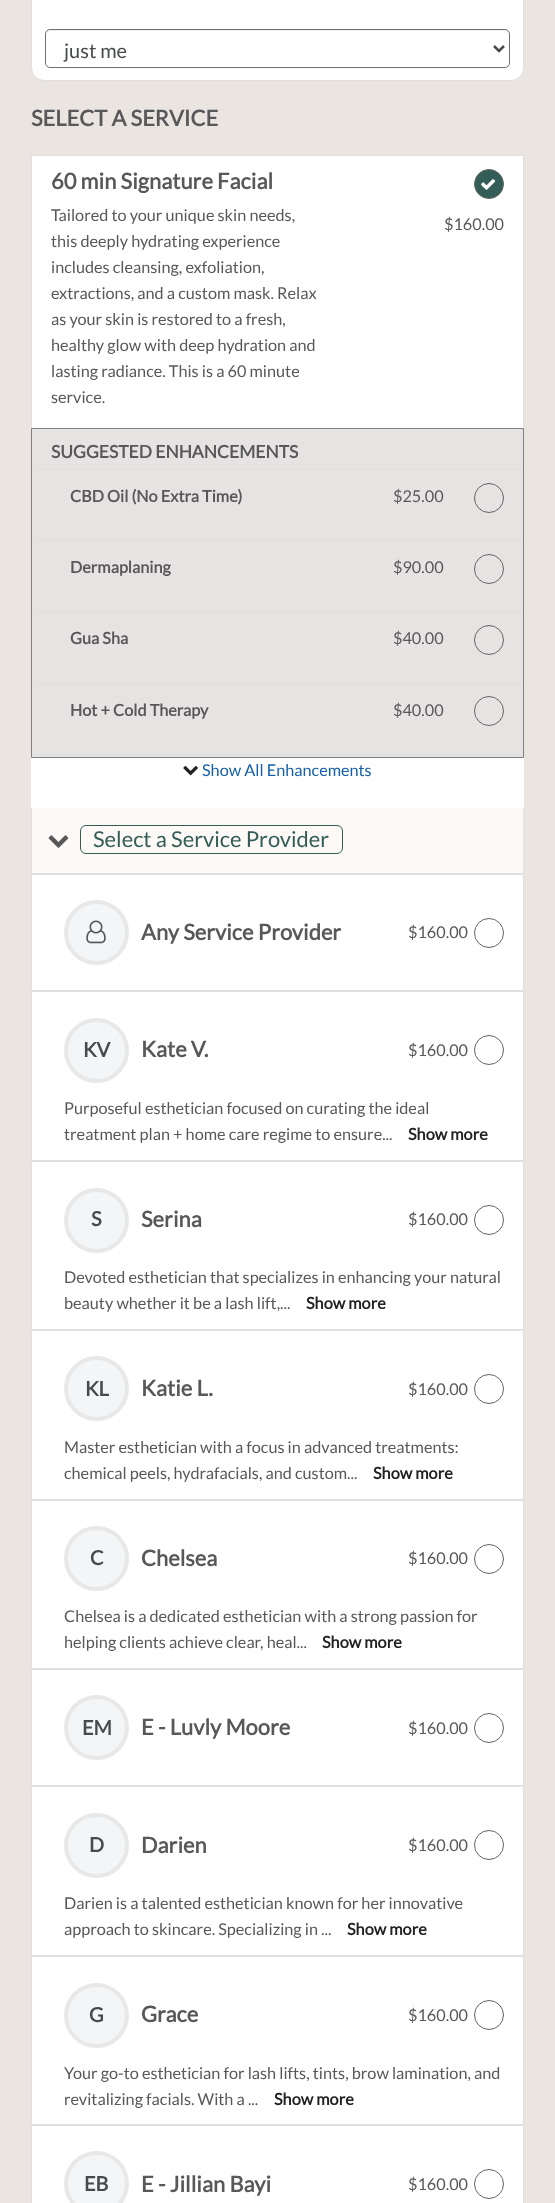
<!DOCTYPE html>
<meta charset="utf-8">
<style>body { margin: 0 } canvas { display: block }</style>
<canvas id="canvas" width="555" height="2203"></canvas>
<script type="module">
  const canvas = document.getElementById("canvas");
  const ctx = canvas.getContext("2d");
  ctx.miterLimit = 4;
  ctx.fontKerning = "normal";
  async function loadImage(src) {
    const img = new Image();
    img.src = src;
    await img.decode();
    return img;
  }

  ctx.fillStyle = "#eae5e1";
  ctx.fillRect(0, 0, 555, 2203);
  ctx.fillStyle = "#ffffff";
  ctx.beginPath();
  ctx.roundRect(31.5, -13.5, 492, 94, 12.5);
  ctx.fill();
  ctx.strokeStyle = "#e0e0e0";
  ctx.stroke();
  ctx.fillStyle = "#ececec";
  ctx.beginPath();
  ctx.moveTo(49, 31);
  ctx.lineTo(506, 31);
  ctx.bezierCurveTo(507, 31, 509, 33, 509, 34);
  ctx.bezierCurveTo(509, 32, 508, 30, 506, 30);
  ctx.lineTo(48, 30);
  ctx.lineTo(46, 32);
  ctx.lineTo(46, 34);
  ctx.bezierCurveTo(46, 33, 48, 31, 49, 31);
  ctx.closePath();
  ctx.fill();
  ctx.beginPath();
  ctx.roundRect(45.5, 29.5, 464, 38, 4.5);
  ctx.strokeStyle = "#6e7173";
  ctx.stroke();
  ctx.beginPath();
  ctx.moveTo(494, 46);
  ctx.lineTo(499, 51);
  ctx.lineTo(504, 46);
  ctx.strokeStyle = "#464a4c";
  ctx.lineWidth = 2.5;
  ctx.stroke();
  ctx.font = "20px Lato";
  ctx.fillStyle = "#464a4c";
  ctx.fillText("just me", 64, 58);
  ctx.font = "bold 21.9px Lato";
  ctx.fillStyle = "#58585b";
  ctx.fillText("SELECT A SERVICE", 31, 126);
  ctx.fillStyle = "#ffffff";
  ctx.fillRect(32, 156, 491, 272);
  ctx.fillStyle = "#e0e0e0";
  ctx.fillRect(31, 155, 493, 1);
  ctx.fillRect(523, 155, 1, 273);
  ctx.fillRect(31, 155, 1, 273);
  ctx.fillStyle = "#58585b";
  ctx.fillText("60 min Signature Facial", 51, 189);
  ctx.font = "16.25px Lato";
  ctx.fillText("Tailored to your unique skin needs,", 51, 221);
  ctx.fillText("this deeply hydrating experience", 51, 247);
  ctx.fillText("includes cleansing, exfoliation,", 51, 273);
  ctx.fillText("extractions, and a custom mask. Relax", 51, 299);
  ctx.fillText("as your skin is restored to a fresh,", 51, 325);
  ctx.fillText("healthy glow with deep hydration and", 51, 351);
  ctx.fillText("lasting radiance. This is a 60 minute", 51, 377);
  ctx.fillText("service.", 51, 403);
  ctx.fillStyle = "#335d56";
  ctx.beginPath();
  ctx.arc(489, 184, 14.5, 0, Math.PI * 2);
  ctx.fill();
  ctx.strokeStyle = "#626466";
  ctx.lineWidth = 1;
  ctx.stroke();
  ctx.drawImage(await loadImage("img1.png"), 481, 179, 15, 11);
  ctx.fillStyle = "#58585b";
  ctx.fillText("$160.00", 444, 230);
  ctx.fillStyle = "#e7e3e3";
  ctx.beginPath();
  ctx.rect(31.5, 428.5, 492, 329);
  ctx.fill();
  ctx.strokeStyle = "#808080";
  ctx.stroke();
  ctx.font = "bold 17.5px Lato";
  ctx.fillStyle = "#58585b";
  ctx.fillText("SUGGESTED ENHANCEMENTS", 51, 458);
  ctx.fillStyle = "#e0e0e0";
  ctx.fillRect(33, 469, 490, 1);
  ctx.fillRect(33, 754, 490, 2);
  ctx.fillRect(33, 540, 490, 1);
  ctx.font = "bold 16.25px Lato";
  ctx.fillStyle = "#58585b";
  ctx.fillText("CBD Oil (No Extra Time)", 70, 502);
  ctx.font = "16.25px Lato";
  ctx.fillText("$25.00", 393, 502);
  ctx.beginPath();
  ctx.arc(489, 498, 14.5, 0, Math.PI * 2);
  ctx.strokeStyle = "#626466";
  ctx.stroke();
  ctx.fillStyle = "#e0e0e0";
  ctx.fillRect(33, 611, 490, 1);
  ctx.font = "bold 16.25px Lato";
  ctx.fillStyle = "#58585b";
  ctx.fillText("Dermaplaning", 70, 573);
  ctx.font = "16.25px Lato";
  ctx.fillText("$90.00", 393, 573);
  ctx.beginPath();
  ctx.arc(489, 569, 14.5, 0, Math.PI * 2);
  ctx.stroke();
  ctx.fillStyle = "#e0e0e0";
  ctx.fillRect(33, 683, 490, 1);
  ctx.font = "bold 16.25px Lato";
  ctx.fillStyle = "#58585b";
  ctx.fillText("Gua Sha", 70, 644);
  ctx.font = "16.25px Lato";
  ctx.fillText("$40.00", 393, 644);
  ctx.beginPath();
  ctx.arc(489, 640, 14.5, 0, Math.PI * 2);
  ctx.stroke();
  ctx.font = "bold 16.25px Lato";
  ctx.fillText("Hot + Cold Therapy", 70, 716);
  ctx.font = "16.25px Lato";
  ctx.fillText("$40.00", 393, 716);
  ctx.beginPath();
  ctx.arc(489, 711, 14.5, 0, Math.PI * 2);
  ctx.stroke();
  ctx.fillStyle = "#ffffff";
  ctx.fillRect(31, 758, 493, 50);
  ctx.drawImage(await loadImage("img2.png"), 183, 766, 15, 10);
  ctx.fillStyle = "#1460aa";
  ctx.fillText("Show All Enhancements", 202, 776);
  ctx.fillStyle = "#fcf9f7";
  ctx.fillRect(32, 808, 491, 65);
  ctx.fillStyle = "#e0e0e0";
  ctx.fillRect(523, 808, 1, 66);
  ctx.fillRect(31, 873, 493, 1);
  ctx.fillRect(31, 808, 1, 66);
  ctx.drawImage(await loadImage("img3.png"), 48, 835, 21, 13);
  ctx.beginPath();
  ctx.roundRect(80.5, 825.5, 262, 28, 5.5);
  ctx.strokeStyle = "#335d56";
  ctx.stroke();
  ctx.font = "21.9px Lato";
  ctx.fillStyle = "#335d56";
  ctx.fillText("Select a Service Provider", 93, 847);
  ctx.fillStyle = "#ffffff";
  ctx.beginPath();
  ctx.rect(31.5, 874.5, 492, 116);
  ctx.fill();
  ctx.strokeStyle = "#e0e0e0";
  ctx.stroke();
  ctx.fillStyle = "#f3f5f6";
  ctx.beginPath();
  ctx.arc(96.5, 932.5, 30.5, 0, Math.PI * 2);
  ctx.fill();
  ctx.strokeStyle = "#e8e8e8";
  ctx.lineWidth = 4;
  ctx.stroke();
  ctx.drawImage(await loadImage("img4.png"), 86, 920, 20, 24);
  ctx.font = "bold 21.9px Lato";
  ctx.fillStyle = "#58585b";
  ctx.fillText("Any Service Provider", 141, 940);
  ctx.font = "16.25px Lato";
  ctx.fillText("$160.00", 408, 938);
  ctx.beginPath();
  ctx.arc(489, 933, 14.5, 0, Math.PI * 2);
  ctx.strokeStyle = "#626466";
  ctx.lineWidth = 1;
  ctx.stroke();
  ctx.fillStyle = "#ffffff";
  ctx.beginPath();
  ctx.rect(31.5, 991.5, 492, 169);
  ctx.fill();
  ctx.strokeStyle = "#e0e0e0";
  ctx.stroke();
  ctx.fillStyle = "#f3f5f6";
  ctx.beginPath();
  ctx.arc(96.5, 1050.5, 30.5, 0, Math.PI * 2);
  ctx.fill();
  ctx.strokeStyle = "#e8e8e8";
  ctx.lineWidth = 4;
  ctx.stroke();
  ctx.font = "bold 20px Lato";
  ctx.fillStyle = "#464a4c";
  ctx.fillText("KV", 83, 1057);
  ctx.font = "bold 21.9px Lato";
  ctx.fillStyle = "#58585b";
  ctx.fillText("Kate V.", 141, 1057);
  ctx.font = "16.25px Lato";
  ctx.fillText("$160.00", 408, 1056);
  ctx.beginPath();
  ctx.arc(489, 1050, 14.5, 0, Math.PI * 2);
  ctx.strokeStyle = "#626466";
  ctx.lineWidth = 1;
  ctx.stroke();
  ctx.fillText("Purposeful esthetician focused on curating the ideal", 64, 1114);
  ctx.fillText("treatment plan + home care regime to ensure...", 64, 1140);
  ctx.font = "bold 16.25px Lato";
  ctx.fillStyle = "#212121";
  ctx.fillText("Show more", 408, 1140);
  ctx.fillStyle = "#ffffff";
  ctx.beginPath();
  ctx.rect(31.5, 1161.5, 492, 168);
  ctx.fill();
  ctx.strokeStyle = "#e0e0e0";
  ctx.stroke();
  ctx.fillStyle = "#f3f5f6";
  ctx.beginPath();
  ctx.arc(96.5, 1220.5, 30.5, 0, Math.PI * 2);
  ctx.fill();
  ctx.strokeStyle = "#e8e8e8";
  ctx.lineWidth = 4;
  ctx.stroke();
  ctx.font = "bold 20px Lato";
  ctx.fillStyle = "#464a4c";
  ctx.fillText("S", 91, 1226);
  ctx.font = "bold 21.9px Lato";
  ctx.fillStyle = "#58585b";
  ctx.fillText("Serina", 141, 1227);
  ctx.font = "16.25px Lato";
  ctx.fillText("$160.00", 408, 1225);
  ctx.beginPath();
  ctx.arc(489, 1220, 14.5, 0, Math.PI * 2);
  ctx.strokeStyle = "#626466";
  ctx.lineWidth = 1;
  ctx.stroke();
  ctx.fillText("Devoted esthetician that specializes in enhancing your natural", 64, 1283);
  ctx.fillText("beauty whether it be a lash lift,...", 64, 1309);
  ctx.font = "bold 16.25px Lato";
  ctx.fillStyle = "#212121";
  ctx.fillText("Show more", 306, 1309);
  ctx.fillStyle = "#ffffff";
  ctx.beginPath();
  ctx.rect(31.5, 1330.5, 492, 169);
  ctx.fill();
  ctx.strokeStyle = "#e0e0e0";
  ctx.stroke();
  ctx.fillStyle = "#f3f5f6";
  ctx.beginPath();
  ctx.arc(96.5, 1388.5, 30.5, 0, Math.PI * 2);
  ctx.fill();
  ctx.strokeStyle = "#e8e8e8";
  ctx.lineWidth = 4;
  ctx.stroke();
  ctx.font = "bold 20px Lato";
  ctx.fillStyle = "#464a4c";
  ctx.fillText("KL", 85, 1396);
  ctx.font = "bold 21.9px Lato";
  ctx.fillStyle = "#58585b";
  ctx.fillText("Katie L.", 141, 1396);
  ctx.font = "16.25px Lato";
  ctx.fillText("$160.00", 408, 1395);
  ctx.beginPath();
  ctx.arc(489, 1389, 14.5, 0, Math.PI * 2);
  ctx.strokeStyle = "#626466";
  ctx.lineWidth = 1;
  ctx.stroke();
  ctx.fillText("Master esthetician with a focus in advanced treatments:", 64, 1453);
  ctx.fillText("chemical peels, hydrafacials, and custom...", 64, 1479);
  ctx.font = "bold 16.25px Lato";
  ctx.fillStyle = "#212121";
  ctx.fillText("Show more", 373, 1479);
  ctx.fillStyle = "#ffffff";
  ctx.beginPath();
  ctx.rect(31.5, 1500.5, 492, 168);
  ctx.fill();
  ctx.strokeStyle = "#e0e0e0";
  ctx.stroke();
  ctx.fillStyle = "#f3f5f6";
  ctx.beginPath();
  ctx.arc(96.5, 1558.5, 30.5, 0, Math.PI * 2);
  ctx.fill();
  ctx.strokeStyle = "#e8e8e8";
  ctx.lineWidth = 4;
  ctx.stroke();
  ctx.font = "bold 20px Lato";
  ctx.fillStyle = "#464a4c";
  ctx.fillText("C", 90, 1565);
  ctx.font = "bold 21.9px Lato";
  ctx.fillStyle = "#58585b";
  ctx.fillText("Chelsea", 141, 1566);
  ctx.font = "16.25px Lato";
  ctx.fillText("$160.00", 408, 1564);
  ctx.beginPath();
  ctx.arc(489, 1559, 14.5, 0, Math.PI * 2);
  ctx.strokeStyle = "#626466";
  ctx.lineWidth = 1;
  ctx.stroke();
  ctx.fillText("Chelsea is a dedicated esthetician with a strong passion for", 64, 1622);
  ctx.fillText("helping clients achieve clear, heal...", 64, 1648);
  ctx.font = "bold 16.25px Lato";
  ctx.fillStyle = "#212121";
  ctx.fillText("Show more", 322, 1648);
  ctx.fillStyle = "#ffffff";
  ctx.beginPath();
  ctx.rect(31.5, 1669.5, 492, 116);
  ctx.fill();
  ctx.strokeStyle = "#e0e0e0";
  ctx.stroke();
  ctx.fillStyle = "#f3f5f6";
  ctx.beginPath();
  ctx.arc(96.5, 1727.5, 30.5, 0, Math.PI * 2);
  ctx.fill();
  ctx.strokeStyle = "#e8e8e8";
  ctx.lineWidth = 4;
  ctx.stroke();
  ctx.font = "bold 20px Lato";
  ctx.fillStyle = "#464a4c";
  ctx.fillText("EM", 82, 1735);
  ctx.font = "bold 21.9px Lato";
  ctx.fillStyle = "#58585b";
  ctx.fillText("E - Luvly Moore", 141, 1735);
  ctx.font = "16.25px Lato";
  ctx.fillText("$160.00", 408, 1734);
  ctx.beginPath();
  ctx.arc(489, 1728, 14.5, 0, Math.PI * 2);
  ctx.strokeStyle = "#626466";
  ctx.lineWidth = 1;
  ctx.stroke();
  ctx.fillStyle = "#ffffff";
  ctx.beginPath();
  ctx.rect(31.5, 1786.5, 492, 169);
  ctx.fill();
  ctx.strokeStyle = "#e0e0e0";
  ctx.stroke();
  ctx.fillStyle = "#f3f5f6";
  ctx.beginPath();
  ctx.arc(96.5, 1845.5, 30.5, 0, Math.PI * 2);
  ctx.fill();
  ctx.strokeStyle = "#e8e8e8";
  ctx.lineWidth = 4;
  ctx.stroke();
  ctx.font = "bold 20px Lato";
  ctx.fillStyle = "#464a4c";
  ctx.fillText("D", 89, 1852);
  ctx.font = "bold 21.9px Lato";
  ctx.fillStyle = "#58585b";
  ctx.fillText("Darien", 141, 1853);
  ctx.font = "16.25px Lato";
  ctx.fillText("$160.00", 408, 1851);
  ctx.beginPath();
  ctx.arc(489, 1845, 14.5, 0, Math.PI * 2);
  ctx.strokeStyle = "#626466";
  ctx.lineWidth = 1;
  ctx.stroke();
  ctx.fillText("Darien is a talented esthetician known for her innovative", 64, 1909);
  ctx.fillText("approach to skincare. Specializing in ...", 64, 1935);
  ctx.font = "bold 16.25px Lato";
  ctx.fillStyle = "#212121";
  ctx.fillText("Show more", 347, 1935);
  ctx.fillStyle = "#ffffff";
  ctx.beginPath();
  ctx.rect(31.5, 1956.5, 492, 168);
  ctx.fill();
  ctx.strokeStyle = "#e0e0e0";
  ctx.stroke();
  ctx.fillStyle = "#f3f5f6";
  ctx.beginPath();
  ctx.arc(96.5, 2015.5, 30.5, 0, Math.PI * 2);
  ctx.fill();
  ctx.strokeStyle = "#e8e8e8";
  ctx.lineWidth = 4;
  ctx.stroke();
  ctx.font = "bold 20px Lato";
  ctx.fillStyle = "#464a4c";
  ctx.fillText("G", 89, 2022);
  ctx.font = "bold 21.9px Lato";
  ctx.fillStyle = "#58585b";
  ctx.fillText("Grace", 141, 2022);
  ctx.font = "16.25px Lato";
  ctx.fillText("$160.00", 408, 2021);
  ctx.beginPath();
  ctx.arc(489, 2015, 14.5, 0, Math.PI * 2);
  ctx.strokeStyle = "#626466";
  ctx.lineWidth = 1;
  ctx.stroke();
  ctx.fillText("Your go-to esthetician for lash lifts, tints, brow lamination, and", 64, 2079);
  ctx.fillText("revitalizing facials. With a ...", 64, 2105);
  ctx.font = "bold 16.25px Lato";
  ctx.fillStyle = "#212121";
  ctx.fillText("Show more", 274, 2105);
  ctx.fillStyle = "#ffffff";
  ctx.beginPath();
  ctx.rect(31.5, 2125.5, 492, 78);
  ctx.fill();
  ctx.strokeStyle = "#e0e0e0";
  ctx.stroke();
  ctx.fillStyle = "#f3f5f6";
  ctx.beginPath();
  ctx.arc(96.5, 2183.5, 30.5, 0, Math.PI * 2);
  ctx.fill();
  ctx.strokeStyle = "#e8e8e8";
  ctx.lineWidth = 4;
  ctx.stroke();
  ctx.font = "bold 20px Lato";
  ctx.fillStyle = "#464a4c";
  ctx.fillText("EB", 84, 2191);
  ctx.font = "bold 21.9px Lato";
  ctx.fillStyle = "#58585b";
  ctx.fillText("E - Jillian Bayi", 141, 2192);
  ctx.font = "16.25px Lato";
  ctx.fillText("$160.00", 408, 2190);
  ctx.beginPath();
  ctx.arc(489, 2184, 14.5, 0, Math.PI * 2);
  ctx.strokeStyle = "#626466";
  ctx.lineWidth = 1;
  ctx.stroke();
</script>
